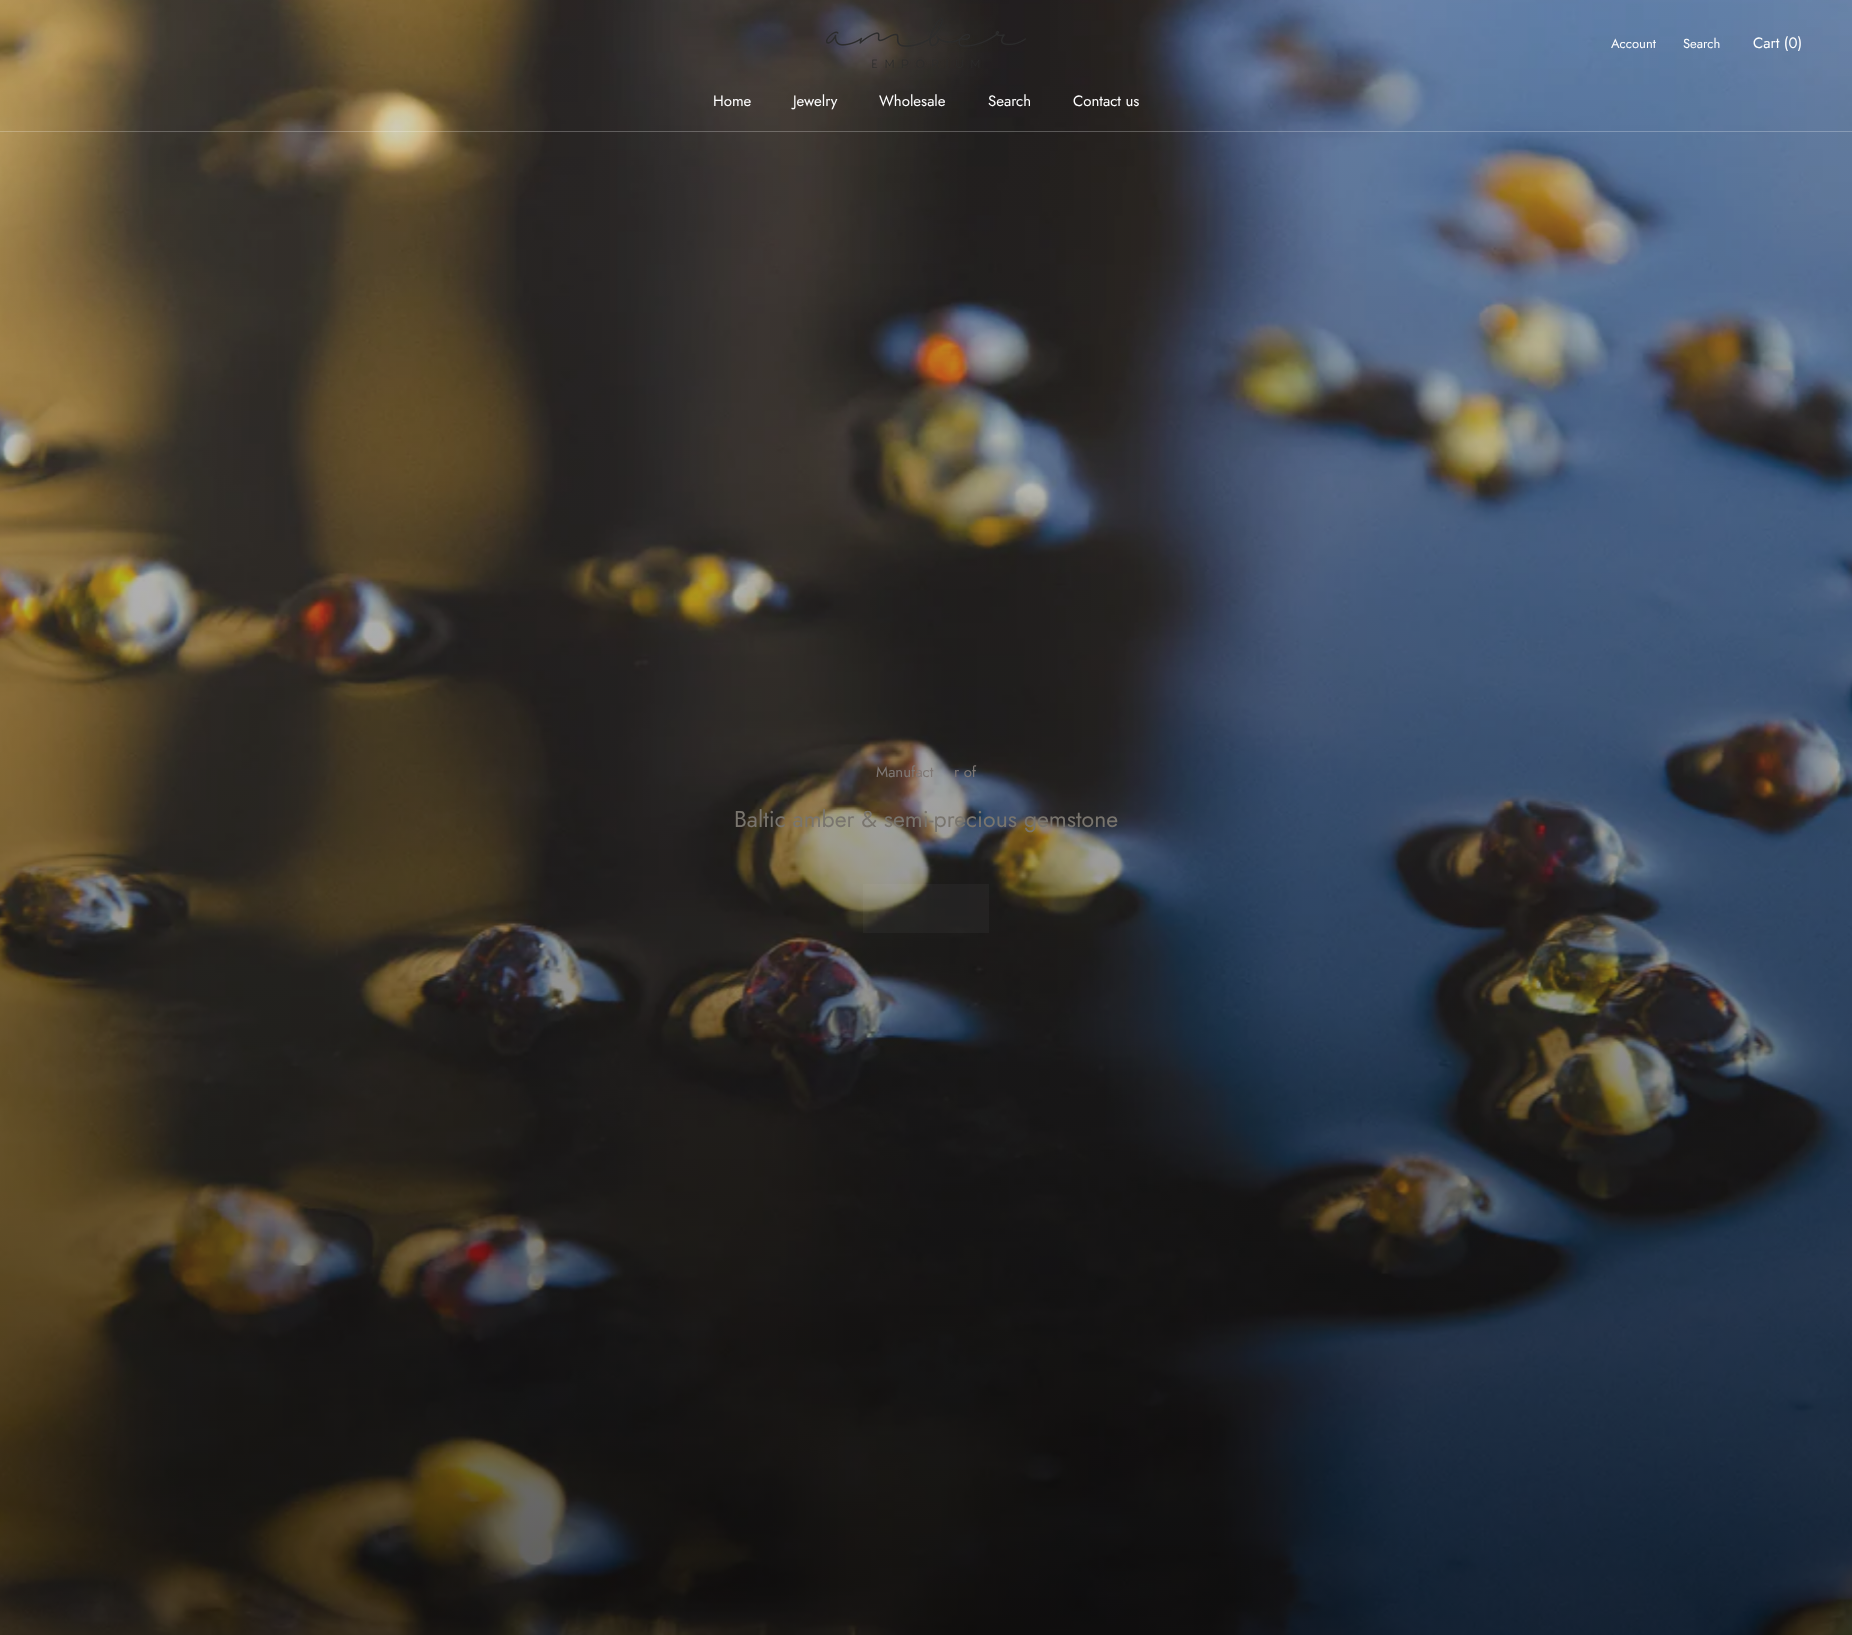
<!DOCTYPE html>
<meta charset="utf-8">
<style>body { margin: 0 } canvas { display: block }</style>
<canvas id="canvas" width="1852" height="1635"></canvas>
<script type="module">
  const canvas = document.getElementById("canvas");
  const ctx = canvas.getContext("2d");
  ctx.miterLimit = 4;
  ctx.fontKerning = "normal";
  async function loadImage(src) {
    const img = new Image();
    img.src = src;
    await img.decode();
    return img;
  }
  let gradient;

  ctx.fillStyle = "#ffffff";
  ctx.fillRect(0, 0, 1852, 1635);
  ctx.drawImage(await loadImage("img2.png"), 0, 0, 1852, 1635);
  gradient = ctx.createLinearGradient(926, 1635, 926, 0);
  gradient.addColorStop(0, "rgba(4, 4, 4, 0.65)");
  gradient.addColorStop(1, "rgba(54, 54, 54, 0.2)");
  ctx.fillStyle = gradient;
  ctx.fillRect(0, 0, 1852, 1635);
  ctx.fillStyle = "rgba(255, 255, 255, 0.25)";
  ctx.fillRect(0, 131, 1852, 1);
  ctx.drawImage(await loadImage("img1.png"), 826, 18, 200, 50);
  ctx.font = "13px Jost";
  ctx.fillStyle = "#ffffff";
  ctx.fillText("Account", 1611, 48);
  ctx.fillText("Search", 1683, 48);
  ctx.font = "15px Jost";
  ctx.fillText("Cart (0)", 1753, 48);
  ctx.fillText("Home", 713, 106);
  ctx.fillText("Jewelry", 793, 106);
  ctx.fillText("Wholesale", 879, 106);
  ctx.fillText("Search", 988, 106);
  ctx.fillText("Contact us", 1073, 106);
  ctx.fillStyle = "#7f7875";
  ctx.fillText("Manufact", 876, 777);
  ctx.fillText("r of", 954, 777);
  ctx.font = "23px Jost";
  ctx.fillStyle = "#79756e";
  ctx.fillText("Baltic amber & semi-precious gemstone", 734, 827);
  ctx.strokeStyle = "rgba(255, 255, 255, 0.04)";
  ctx.strokeRect(863.5, 884.5, 125, 48);
  ctx.fillStyle = "rgba(255, 255, 255, 0.04)";
  ctx.fillRect(864, 885, 124, 47);
</script>
